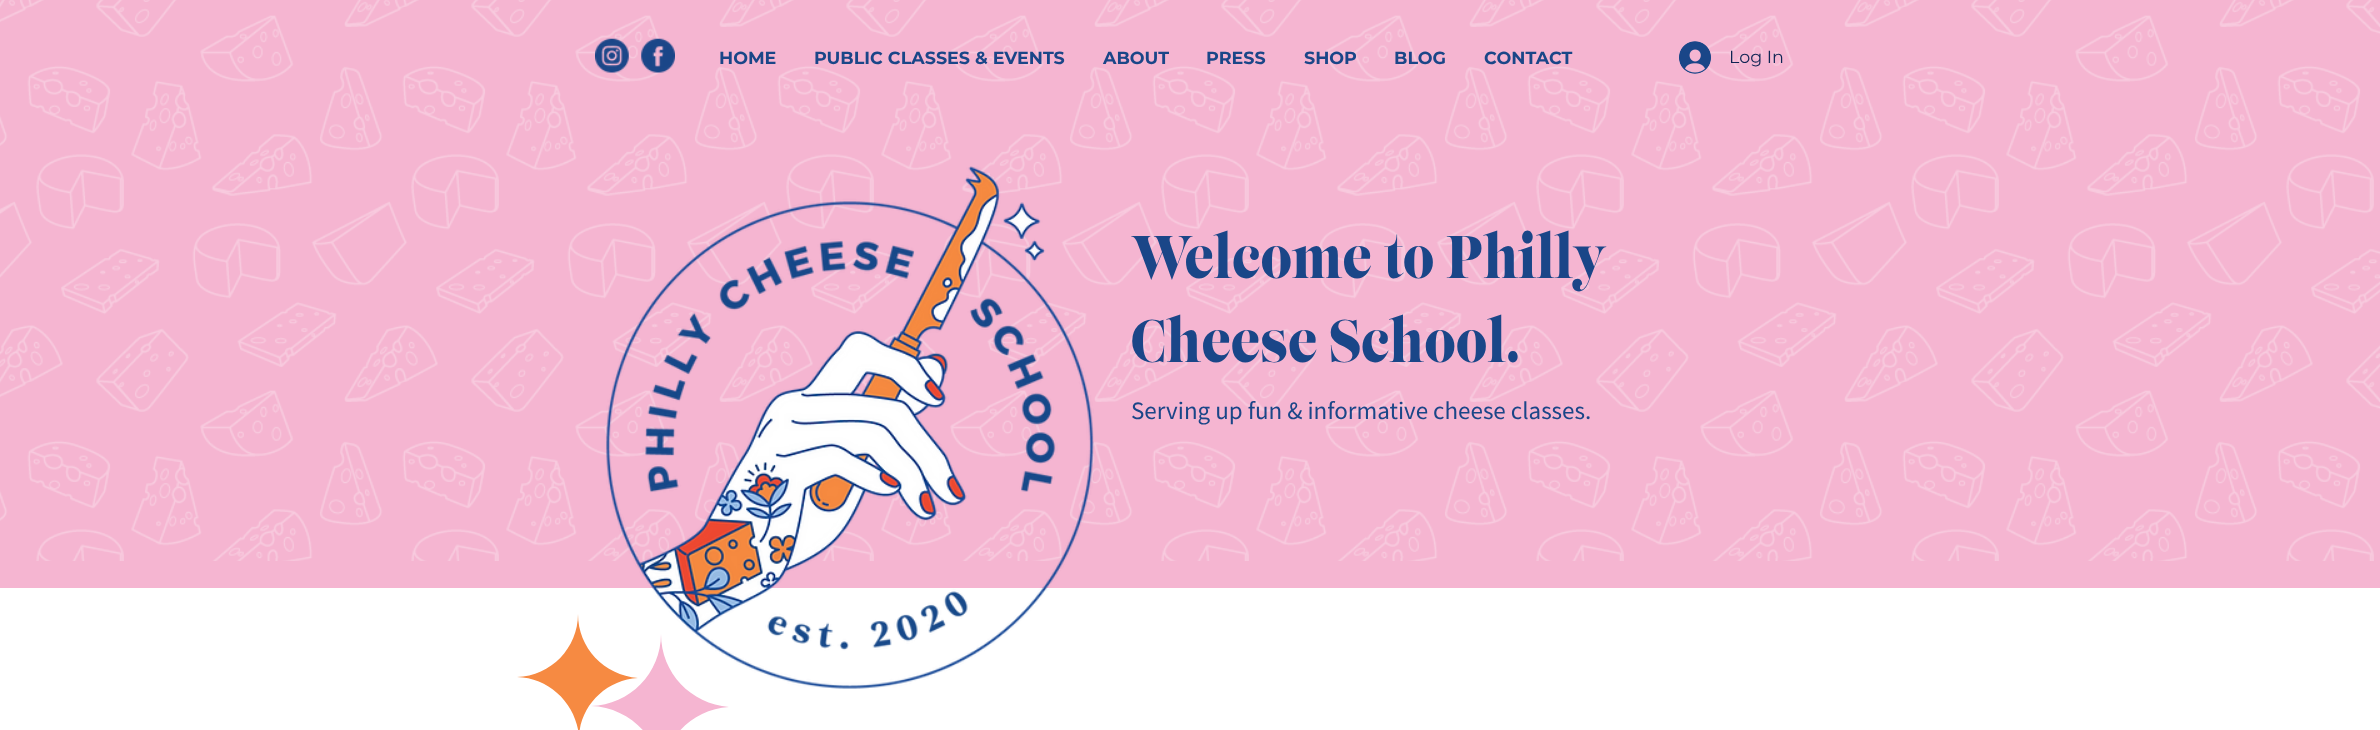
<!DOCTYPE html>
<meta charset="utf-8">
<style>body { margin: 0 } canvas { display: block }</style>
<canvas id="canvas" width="2380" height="730"></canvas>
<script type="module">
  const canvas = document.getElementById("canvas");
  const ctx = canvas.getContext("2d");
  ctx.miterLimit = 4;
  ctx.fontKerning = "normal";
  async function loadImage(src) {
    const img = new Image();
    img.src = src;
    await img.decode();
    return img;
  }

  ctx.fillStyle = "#f5b5d1";
  ctx.fillRect(0, 0, 2380, 730);
  ctx.drawImage(await loadImage("img1.png"), 0, 0, 2380, 561);
  ctx.drawImage(await loadImage("img2.png"), 595, 38, 34, 35);
  ctx.drawImage(await loadImage("img3.png"), 641, 38, 34, 35);
  ctx.font = "bold 17.5px Montserrat";
  ctx.fillStyle = "#1a4688";
  ctx.fillText("HOME", 719, 64);
  ctx.fillText("PUBLIC CLASSES & EVENTS", 814, 64);
  ctx.fillText("ABOUT", 1103, 64);
  ctx.fillText("PRESS", 1206, 64);
  ctx.fillText("SHOP", 1304, 64);
  ctx.fillText("BLOG", 1394, 64);
  ctx.fillText("CONTACT", 1484, 64);
  ctx.drawImage(await loadImage("img4.png"), 1679, 41, 32, 33);
  ctx.font = "17.5px Montserrat";
  ctx.fillStyle = "#0f2453";
  ctx.fillText("Log In", 1729, 63);
  ctx.fillStyle = "#ffffff";
  ctx.fillRect(0, 588, 2380, 142);
  ctx.fillStyle = "#f68a42";
  ctx.beginPath();
  ctx.moveTo(517, 677);
  ctx.bezierCurveTo(550, 678, 576, 704, 579, 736);
  ctx.bezierCurveTo(581, 705, 606, 680, 638, 678);
  ctx.bezierCurveTo(604, 675, 578, 648, 578, 614);
  ctx.bezierCurveTo(578, 648, 551, 676, 517, 677);
  ctx.closePath();
  ctx.fill();
  ctx.fillStyle = "#f5b5d1";
  ctx.beginPath();
  ctx.moveTo(591, 706);
  ctx.bezierCurveTo(628, 707, 659, 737, 662, 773);
  ctx.bezierCurveTo(664, 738, 693, 709, 729, 707);
  ctx.bezierCurveTo(691, 704, 661, 673, 661, 634);
  ctx.bezierCurveTo(661, 673, 630, 705, 591, 706);
  ctx.closePath();
  ctx.fill();
  ctx.drawImage(await loadImage("img5.png"), 606, 166, 488, 523);
  ctx.font = "60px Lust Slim";
  ctx.fillStyle = "#1a4688";
  ctx.fillText("Welcome to Philly", 1131, 278);
  ctx.fillText("Cheese School.", 1131, 362);
  ctx.font = "25px Source Sans Pro";
  ctx.fillText("Serving up fun & informative cheese classes.", 1131, 419);
</script>
